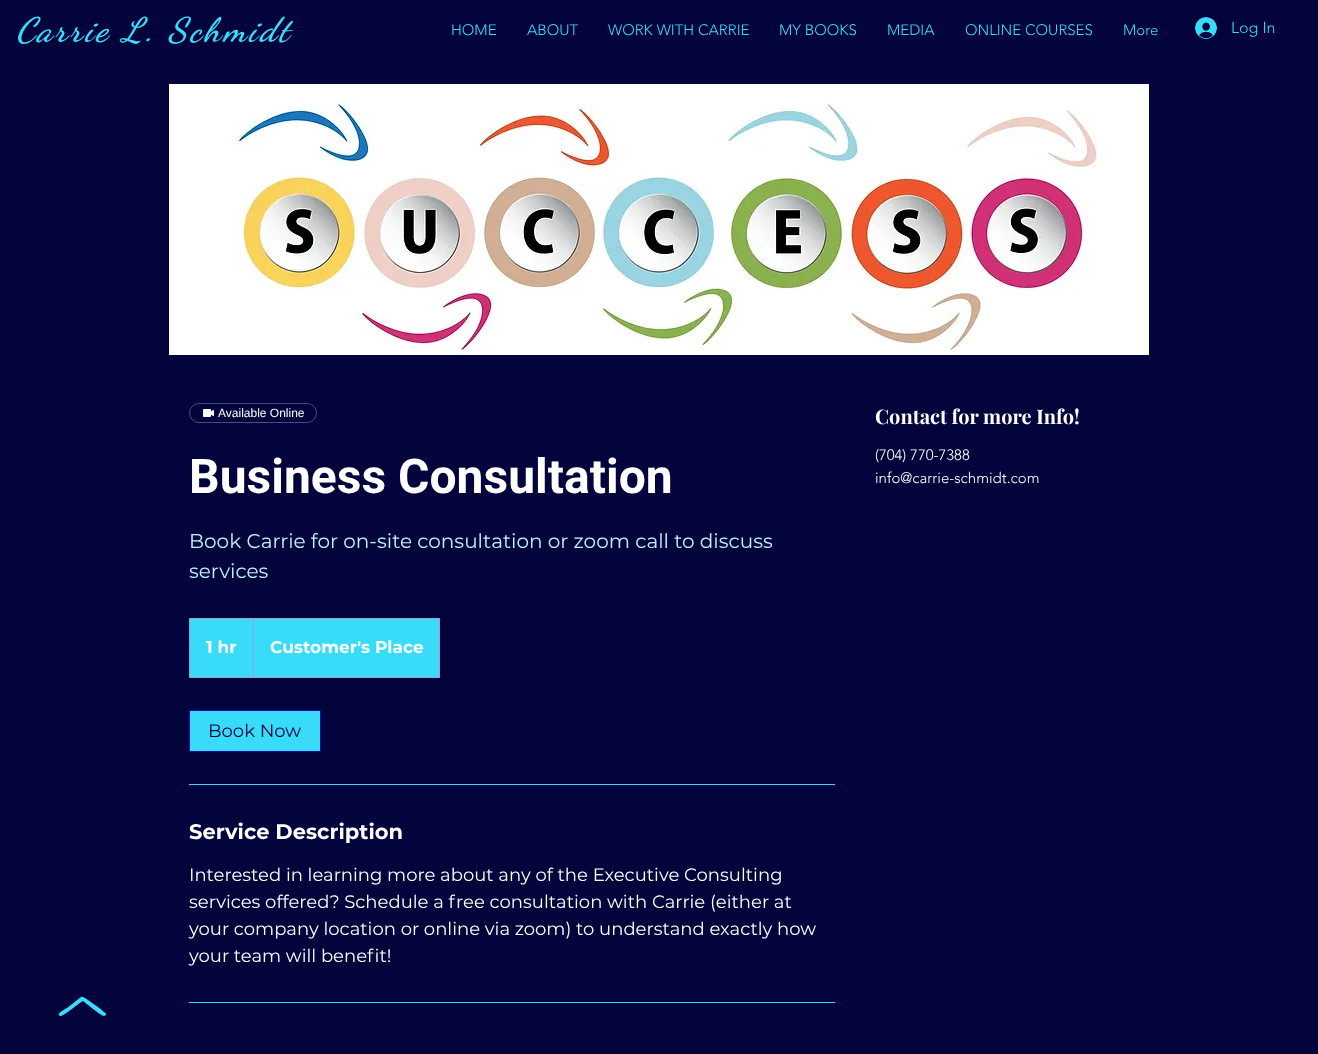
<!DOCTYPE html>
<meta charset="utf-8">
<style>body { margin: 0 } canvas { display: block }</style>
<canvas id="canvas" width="1318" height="1054"></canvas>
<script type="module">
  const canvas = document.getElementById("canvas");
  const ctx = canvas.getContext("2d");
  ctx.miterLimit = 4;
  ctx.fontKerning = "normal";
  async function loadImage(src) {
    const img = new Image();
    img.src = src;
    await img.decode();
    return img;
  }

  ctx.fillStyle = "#03043b";
  ctx.fillRect(0, 0, 1318, 1054);
  ctx.letterSpacing = "2.75px";
  ctx.font = "italic bold 34px Dancing Script";
  ctx.fillStyle = "#38dcf9";
  ctx.fillText("Carrie L. Schmidt", 16, 41);
  ctx.letterSpacing = "0px";
  ctx.font = "300 15px 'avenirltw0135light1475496'";
  ctx.fillText("HOME", 451, 35);
  ctx.fillText("ABOUT", 527, 35);
  ctx.fillText("WORK WITH CARRIE", 608, 35);
  ctx.fillText("MY BOOKS", 779, 35);
  ctx.fillText("MEDIA", 887, 35);
  ctx.fillText("ONLINE COURSES", 965, 35);
  ctx.fillText("More", 1123, 35);
  ctx.drawImage(await loadImage("img1.png"), 1195, 17, 22, 22);
  ctx.font = "300 16px 'avenirltw0135light1475496'";
  ctx.fillText("Log In", 1231, 33);
  ctx.drawImage(await loadImage("img2.png"), 169, 84, 980, 271);
  ctx.beginPath();
  ctx.roundRect(189.5, 403.5, 127, 19, 9.5);
  ctx.strokeStyle = "#484988";
  ctx.stroke();
  ctx.drawImage(await loadImage("img3.png"), 203, 409, 11, 8);
  ctx.font = "12px Liberation Sans";
  ctx.fillStyle = "#ffffff";
  ctx.fillText("Available Online", 218, 417);
  ctx.font = "bold 48px Roboto";
  ctx.fillText("Business Consultation", 189, 493);
  ctx.font = "20px Montserrat";
  ctx.fillStyle = "#bcf3fd";
  ctx.fillText("Book Carrie for on-site consultation or zoom call to discuss", 189, 548);
  ctx.fillText("services", 189, 578);
  ctx.fillStyle = "#38dcf9";
  ctx.beginPath();
  ctx.rect(189.5, 618.5, 250, 59);
  ctx.fill();
  ctx.strokeStyle = "#9c9ee5";
  ctx.stroke();
  ctx.font = "bold 17px Montserrat";
  ctx.fillStyle = "#ffffff";
  ctx.fillText("1 hr", 206, 653);
  ctx.fillStyle = "#9c9ee5";
  ctx.fillRect(253, 619, 1, 58);
  ctx.fillStyle = "#ffffff";
  ctx.fillText("Customer's Place", 270, 653);
  ctx.fillStyle = "#38dcf9";
  ctx.beginPath();
  ctx.rect(189.5, 710.5, 131, 41);
  ctx.fill();
  ctx.strokeStyle = "#080db2";
  ctx.stroke();
  ctx.font = "18px Montserrat";
  ctx.fillStyle = "#03043b";
  ctx.fillText("Book Now", 208, 737);
  ctx.fillStyle = "#38dcf9";
  ctx.fillRect(189, 784, 646, 1);
  ctx.font = "bold 21px Montserrat";
  ctx.fillStyle = "#ffffff";
  ctx.fillText("Service Description", 189, 839);
  ctx.font = "18px Montserrat";
  ctx.fillText("Interested in learning more about any of the Executive Consulting", 189, 881);
  ctx.fillText("services offered? Schedule a free consultation with Carrie (either at", 189, 908);
  ctx.fillText("your company location or online via zoom) to understand exactly how", 189, 935);
  ctx.fillText("your team will benefit!", 189, 962);
  ctx.fillStyle = "#38dcf9";
  ctx.fillRect(189, 1002, 646, 1);
  ctx.font = "bold 20px Playfair Display";
  ctx.fillStyle = "#ffffff";
  ctx.fillText("Contact for more Info!", 875, 424);
  ctx.font = "300 15px 'avenirltw0135light1475496'";
  ctx.fillText("(704) 770-7388", 875, 460);
  ctx.fillText("info@carrie-schmidt.com", 875, 483);
  ctx.fillStyle = "#38dcf9";
  ctx.beginPath();
  ctx.moveTo(104, 1016);
  ctx.bezierCurveTo(101, 1016, 86, 1003, 83, 1001);
  ctx.bezierCurveTo(79, 1003, 63, 1017, 60, 1016);
  ctx.bezierCurveTo(56, 1014, 62, 1011, 67, 1008);
  ctx.lineTo(81, 997);
  ctx.bezierCurveTo(83, 996, 86, 999, 88, 1000);
  ctx.lineTo(102, 1010);
  ctx.bezierCurveTo(102, 1011, 107, 1013, 106, 1015);
  ctx.closePath();
  ctx.fill();
</script>
